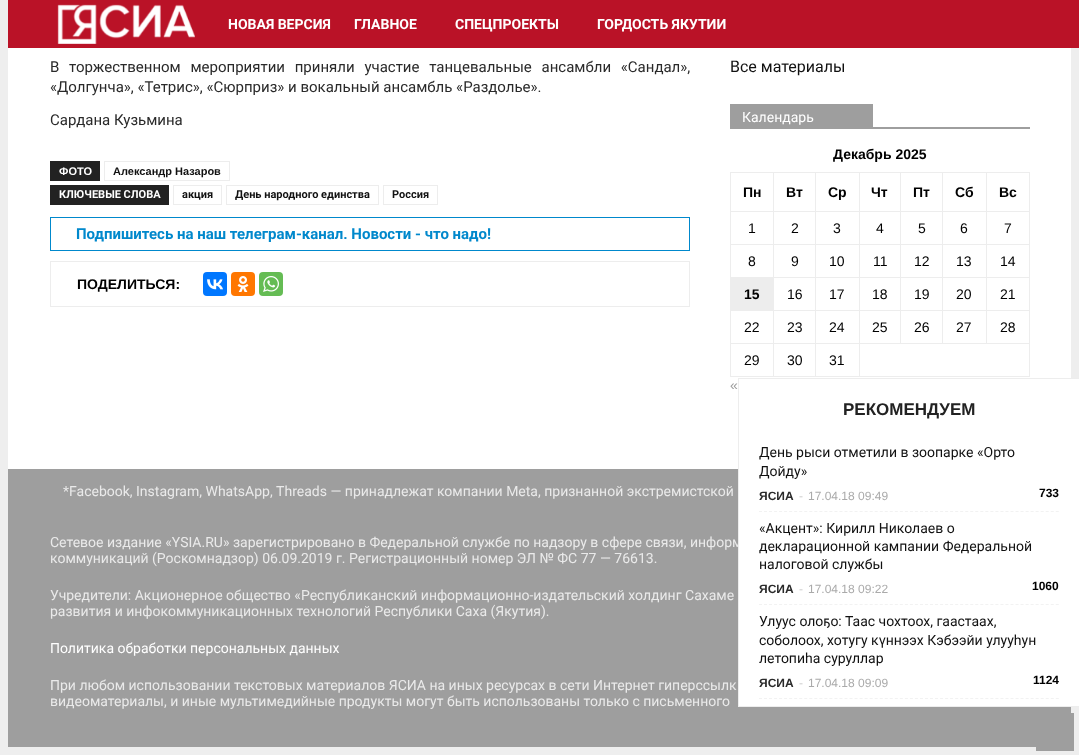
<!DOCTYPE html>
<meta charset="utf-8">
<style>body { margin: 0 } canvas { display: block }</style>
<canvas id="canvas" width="1079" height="755"></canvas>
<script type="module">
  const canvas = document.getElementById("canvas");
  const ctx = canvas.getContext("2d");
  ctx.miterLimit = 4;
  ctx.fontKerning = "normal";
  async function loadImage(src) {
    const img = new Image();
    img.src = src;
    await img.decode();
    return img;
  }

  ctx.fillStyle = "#eeeeee";
  ctx.fillRect(0, 0, 1079, 755);
  ctx.fillStyle = "#ba1227";
  ctx.fillRect(8, 0, 1071, 48);
  ctx.drawImage(await loadImage("img1.png"), 57, 4, 138, 40);
  ctx.font = "bold 14px Roboto";
  ctx.fillStyle = "#ffffff";
  ctx.fillText("НОВАЯ ВЕРСИЯ", 228, 29);
  ctx.fillText("ГЛАВНОЕ", 354, 29);
  ctx.fillText("СПЕЦПРОЕКТЫ", 455, 29);
  ctx.fillText("ГОРДОСТЬ ЯКУТИИ", 597, 29);
  ctx.fillRect(8, 48, 1063, 421);
  ctx.wordSpacing = "6px";
  ctx.font = "15px Roboto";
  ctx.fillStyle = "#2a2a2a";
  ctx.fillText("В торжественном мероприятии приняли участие танцевальные ансамбли «Сандал»,", 50, 72);
  ctx.wordSpacing = "0px";
  ctx.fillText("«Долгунча», «Тетрис», «Сюрприз» и вокальный ансамбль «Раздолье».", 50, 92);
  ctx.fillText("Сардана Кузьмина", 50, 125);
  ctx.fillStyle = "#222222";
  ctx.fillRect(50, 161, 50, 20);
  ctx.font = "bold 11px Liberation Sans";
  ctx.fillStyle = "#ffffff";
  ctx.fillText("ФОТО", 59, 175);
  ctx.strokeStyle = "#ededed";
  ctx.strokeRect(104.5, 161.5, 125, 19);
  ctx.fillStyle = "#111111";
  ctx.fillText("Александр Назаров", 113, 175);
  ctx.fillStyle = "#222222";
  ctx.fillRect(50, 185, 119, 20);
  ctx.font = "bold 11px Roboto";
  ctx.fillStyle = "#ffffff";
  ctx.fillText("КЛЮЧЕВЫЕ СЛОВА", 59, 198);
  ctx.strokeRect(173.5, 185.5, 48, 19);
  ctx.fillStyle = "#111111";
  ctx.fillText("акция", 182, 198);
  ctx.strokeRect(226.5, 185.5, 152, 19);
  ctx.fillText("День народного единства", 235, 198);
  ctx.strokeRect(383.5, 185.5, 54, 19);
  ctx.fillText("Россия", 392, 198);
  ctx.strokeStyle = "#0088cc";
  ctx.strokeRect(50.5, 217.5, 639, 33);
  ctx.font = "bold 15px Roboto";
  ctx.fillStyle = "#0088cc";
  ctx.fillText("Подпишитесь на наш телеграм-канал. Новости - что надо!", 76, 239);
  ctx.strokeStyle = "#ededed";
  ctx.strokeRect(50.5, 261.5, 639, 45);
  ctx.font = "bold 14px Liberation Sans";
  ctx.fillStyle = "#000000";
  ctx.fillText("ПОДЕЛИТЬСЯ:", 77, 289);
  ctx.fillStyle = "#0077ff";
  ctx.beginPath();
  ctx.roundRect(203, 272, 24, 24, 4);
  ctx.fill();
  ctx.drawImage(await loadImage("img2.png"), 207, 279, 16, 11);
  ctx.fillStyle = "#ff7700";
  ctx.beginPath();
  ctx.roundRect(231, 272, 24, 24, 4);
  ctx.fill();
  ctx.drawImage(await loadImage("img3.png"), 237, 276, 12, 16);
  ctx.fillStyle = "#65bc54";
  ctx.beginPath();
  ctx.roundRect(259, 272, 24, 24, 4);
  ctx.fill();
  ctx.drawImage(await loadImage("img4.png"), 263, 276, 16, 16);
  ctx.font = "16px Roboto";
  ctx.fillStyle = "#111111";
  ctx.fillText("Все материалы", 730, 72);
  ctx.fillStyle = "#9e9e9e";
  ctx.fillRect(730, 127, 300, 2);
  ctx.fillRect(730, 104, 143, 23);
  ctx.font = "14px Roboto";
  ctx.fillStyle = "#ffffff";
  ctx.fillText("Календарь", 742, 122);
  ctx.font = "bold 14px Liberation Sans";
  ctx.fillStyle = "#000000";
  ctx.fillText("Декабрь 2025", 833, 159);
  ctx.fillStyle = "#ededed";
  ctx.fillRect(986, 172, 44, 1);
  ctx.fillRect(986, 211, 44, 1);
  ctx.fillRect(986, 244, 44, 1);
  ctx.fillRect(986, 277, 44, 1);
  ctx.fillRect(986, 310, 44, 1);
  ctx.fillRect(859, 343, 171, 1);
  ctx.fillRect(986, 310, 1, 34);
  ctx.fillRect(942, 310, 45, 1);
  ctx.fillRect(986, 277, 1, 34);
  ctx.fillRect(942, 277, 45, 1);
  ctx.fillRect(986, 244, 1, 34);
  ctx.fillRect(942, 244, 45, 1);
  ctx.fillRect(986, 211, 1, 34);
  ctx.fillRect(942, 211, 45, 1);
  ctx.fillRect(986, 172, 1, 40);
  ctx.fillRect(942, 172, 45, 1);
  ctx.fillRect(942, 310, 1, 34);
  ctx.fillRect(900, 310, 43, 1);
  ctx.fillRect(942, 277, 1, 34);
  ctx.fillRect(900, 277, 43, 1);
  ctx.fillRect(942, 244, 1, 34);
  ctx.fillRect(900, 244, 43, 1);
  ctx.fillRect(942, 211, 1, 34);
  ctx.fillRect(900, 211, 43, 1);
  ctx.fillRect(942, 172, 1, 40);
  ctx.fillRect(900, 172, 43, 1);
  ctx.fillRect(900, 310, 1, 34);
  ctx.fillRect(859, 310, 42, 1);
  ctx.fillRect(900, 277, 1, 34);
  ctx.fillRect(859, 277, 42, 1);
  ctx.fillRect(900, 244, 1, 34);
  ctx.fillRect(859, 244, 42, 1);
  ctx.fillRect(900, 211, 1, 34);
  ctx.fillRect(859, 211, 42, 1);
  ctx.fillRect(900, 172, 1, 40);
  ctx.fillRect(859, 172, 42, 1);
  ctx.fillRect(1029, 343, 1, 34);
  ctx.fillRect(859, 376, 171, 1);
  ctx.fillRect(859, 343, 1, 34);
  ctx.fillRect(815, 343, 45, 1);
  ctx.fillRect(859, 310, 1, 34);
  ctx.fillRect(815, 310, 45, 1);
  ctx.fillRect(859, 277, 1, 34);
  ctx.fillRect(815, 277, 45, 1);
  ctx.fillRect(859, 244, 1, 34);
  ctx.fillRect(815, 244, 45, 1);
  ctx.fillRect(859, 211, 1, 34);
  ctx.fillRect(815, 211, 45, 1);
  ctx.fillRect(859, 172, 1, 40);
  ctx.fillRect(815, 172, 45, 1);
  ctx.fillRect(730, 278, 44, 33);
  ctx.fillRect(815, 376, 45, 1);
  ctx.fillRect(815, 343, 1, 34);
  ctx.fillRect(773, 343, 43, 1);
  ctx.fillRect(815, 310, 1, 34);
  ctx.fillRect(773, 310, 43, 1);
  ctx.fillRect(815, 277, 1, 34);
  ctx.fillRect(730, 277, 86, 1);
  ctx.fillRect(815, 244, 1, 34);
  ctx.fillRect(773, 244, 43, 1);
  ctx.fillRect(815, 211, 1, 34);
  ctx.fillRect(773, 211, 43, 1);
  ctx.fillRect(815, 172, 1, 40);
  ctx.fillRect(773, 172, 43, 1);
  ctx.fillRect(773, 244, 1, 34);
  ctx.fillRect(730, 244, 44, 1);
  ctx.fillRect(773, 211, 1, 34);
  ctx.fillRect(730, 211, 44, 1);
  ctx.fillRect(773, 172, 1, 40);
  ctx.fillRect(730, 172, 44, 1);
  ctx.fillRect(730, 244, 1, 34);
  ctx.fillRect(730, 211, 1, 34);
  ctx.fillRect(730, 172, 1, 40);
  ctx.fillStyle = "#000000";
  ctx.fillText("Пн", 743, 197);
  ctx.fillText("Вт", 786, 197);
  ctx.fillText("Ср", 828, 197);
  ctx.fillText("Чт", 871, 197);
  ctx.fillText("Пт", 913, 197);
  ctx.fillText("Сб", 955, 197);
  ctx.fillStyle = "#ededed";
  ctx.fillRect(1029, 310, 1, 34);
  ctx.fillRect(1029, 277, 1, 34);
  ctx.fillRect(1029, 244, 1, 34);
  ctx.fillRect(1029, 211, 1, 34);
  ctx.fillRect(1029, 172, 1, 40);
  ctx.fillStyle = "#000000";
  ctx.fillText("Вс", 999, 197);
  ctx.font = "14px Liberation Sans";
  ctx.fillText("1", 748, 233);
  ctx.fillText("2", 791, 233);
  ctx.fillText("3", 833, 233);
  ctx.fillText("4", 876, 233);
  ctx.fillText("5", 918, 233);
  ctx.fillText("6", 960, 233);
  ctx.fillText("7", 1004, 233);
  ctx.fillText("8", 748, 266);
  ctx.fillText("9", 791, 266);
  ctx.fillText("10", 829, 266);
  ctx.fillText("11", 873, 266);
  ctx.fillText("12", 914, 266);
  ctx.fillText("13", 956, 266);
  ctx.fillText("14", 1000, 266);
  ctx.font = "bold 14px Liberation Sans";
  ctx.fillText("15", 744, 299);
  ctx.font = "14px Liberation Sans";
  ctx.fillText("16", 787, 299);
  ctx.fillText("17", 829, 299);
  ctx.fillText("18", 872, 299);
  ctx.fillText("19", 914, 299);
  ctx.fillText("20", 956, 299);
  ctx.fillText("21", 1000, 299);
  ctx.fillText("22", 744, 332);
  ctx.fillStyle = "#ededed";
  ctx.fillRect(773, 376, 43, 1);
  ctx.fillRect(773, 343, 1, 34);
  ctx.fillRect(730, 343, 44, 1);
  ctx.fillRect(773, 310, 1, 34);
  ctx.fillStyle = "#000000";
  ctx.fillText("23", 787, 332);
  ctx.fillText("24", 829, 332);
  ctx.fillText("25", 872, 332);
  ctx.fillText("26", 914, 332);
  ctx.fillText("27", 956, 332);
  ctx.fillText("28", 1000, 332);
  ctx.fillStyle = "#ededed";
  ctx.fillRect(730, 376, 44, 1);
  ctx.fillRect(730, 310, 1, 67);
  ctx.fillStyle = "#000000";
  ctx.fillText("29", 744, 365);
  ctx.fillText("30", 787, 365);
  ctx.fillText("31", 829, 365);
  ctx.fillStyle = "#9e9e9e";
  ctx.fillText("«", 730, 390);
  ctx.fillRect(8, 469, 1063, 278);
  ctx.font = "14px Roboto";
  ctx.fillStyle = "#eaeaea";
  ctx.fillText("*Facebook, Instagram, WhatsApp, Threads — принадлежат компании Meta, признанной экстремистской", 63, 496);
  ctx.fillText("Сетевое издание «YSIA.RU» зарегистрировано в Федеральной службе по надзору в сфере связи, информ", 50, 547);
  ctx.fillText("коммуникаций (Роскомнадзор) 06.09.2019 г. Регистрационный номер ЭЛ № ФС 77 — 76613.", 50, 563);
  ctx.fillText("Учредители: Акционерное общество «Республиканский информационно-издательский холдинг Сахаме", 50, 600);
  ctx.fillText("развития и инфокоммуникационных технологий Республики Саха (Якутия).", 50, 616);
  ctx.fillStyle = "#ffffff";
  ctx.fillText("Политика обработки персональных данных", 50, 653);
  ctx.fillStyle = "#eaeaea";
  ctx.fillText("При любом использовании текстовых материалов ЯСИА на иных ресурсах в сети Интернет гиперссылк", 50, 690);
  ctx.fillText("видеоматериалы, и иные мультимедийные продукты могут быть использованы только с письменного", 50, 706);
  ctx.fillStyle = "#ffffff";
  ctx.fillRect(739, 379, 340, 327);
  ctx.fillStyle = "#ededed";
  ctx.fillRect(738, 378, 341, 1);
  ctx.fillRect(738, 706, 341, 1);
  ctx.fillRect(738, 378, 1, 329);
  ctx.font = "bold 17px Liberation Sans";
  ctx.fillStyle = "#222222";
  ctx.fillText("РЕКОМЕНДУЕМ", 843, 415);
  ctx.beginPath();
  ctx.moveTo(759, 511.5);
  ctx.lineTo(1059, 511.5);
  ctx.strokeStyle = "#f2f2f2";
  ctx.setLineDash([3, 2.03]);
  ctx.stroke();
  ctx.font = "14px Roboto";
  ctx.fillStyle = "#111111";
  ctx.fillText("День рыси отметили в зоопарке «Орто", 759, 457);
  ctx.fillText("Дойду»", 759, 476);
  ctx.font = "bold 12px Liberation Sans";
  ctx.fillStyle = "#2a2a2a";
  ctx.fillText("ЯСИА", 759, 500);
  ctx.font = "12px Liberation Sans";
  ctx.fillStyle = "#cccccc";
  ctx.fillText("-", 799, 500);
  ctx.fillStyle = "#aaaaaa";
  ctx.fillText("17.04.18 09:49", 808, 500);
  ctx.font = "bold 12px Liberation Sans";
  ctx.fillStyle = "#000000";
  ctx.fillText("733", 1039, 497);
  ctx.beginPath();
  ctx.moveTo(759, 604.5);
  ctx.lineTo(1059, 604.5);
  ctx.stroke();
  ctx.font = "14px Roboto";
  ctx.fillStyle = "#111111";
  ctx.fillText("«Акцент»: Кирилл Николаев о", 759, 533);
  ctx.fillText("декларационной кампании Федеральной", 759, 551);
  ctx.fillText("налоговой службы", 759, 569);
  ctx.font = "bold 12px Liberation Sans";
  ctx.fillStyle = "#2a2a2a";
  ctx.fillText("ЯСИА", 759, 593);
  ctx.font = "12px Liberation Sans";
  ctx.fillStyle = "#cccccc";
  ctx.fillText("-", 799, 593);
  ctx.fillStyle = "#aaaaaa";
  ctx.fillText("17.04.18 09:22", 808, 593);
  ctx.font = "bold 12px Liberation Sans";
  ctx.fillStyle = "#000000";
  ctx.fillText("1060", 1032, 590);
  ctx.beginPath();
  ctx.moveTo(759, 698.5);
  ctx.lineTo(1059, 698.5);
  ctx.stroke();
  ctx.font = "14px Roboto";
  ctx.fillStyle = "#111111";
  ctx.fillText("Улуус олоҕо: Таас чохтоох, гаастаах,", 759, 626);
  ctx.fillText("соболоох, хотугу күннээх Кэбээйи улууһун", 759, 645);
  ctx.fillText("летопиһа суруллар", 759, 663);
  ctx.font = "bold 12px Liberation Sans";
  ctx.fillStyle = "#2a2a2a";
  ctx.fillText("ЯСИА", 759, 687);
  ctx.font = "12px Liberation Sans";
  ctx.fillStyle = "#cccccc";
  ctx.fillText("-", 799, 687);
  ctx.fillStyle = "#aaaaaa";
  ctx.fillText("17.04.18 09:09", 808, 687);
  ctx.font = "bold 12px Liberation Sans";
  ctx.fillStyle = "#000000";
  ctx.fillText("1124", 1033, 684);
  ctx.fillStyle = "#9e9e9e";
  ctx.fillRect(1036, 713, 38, 38);
</script>
